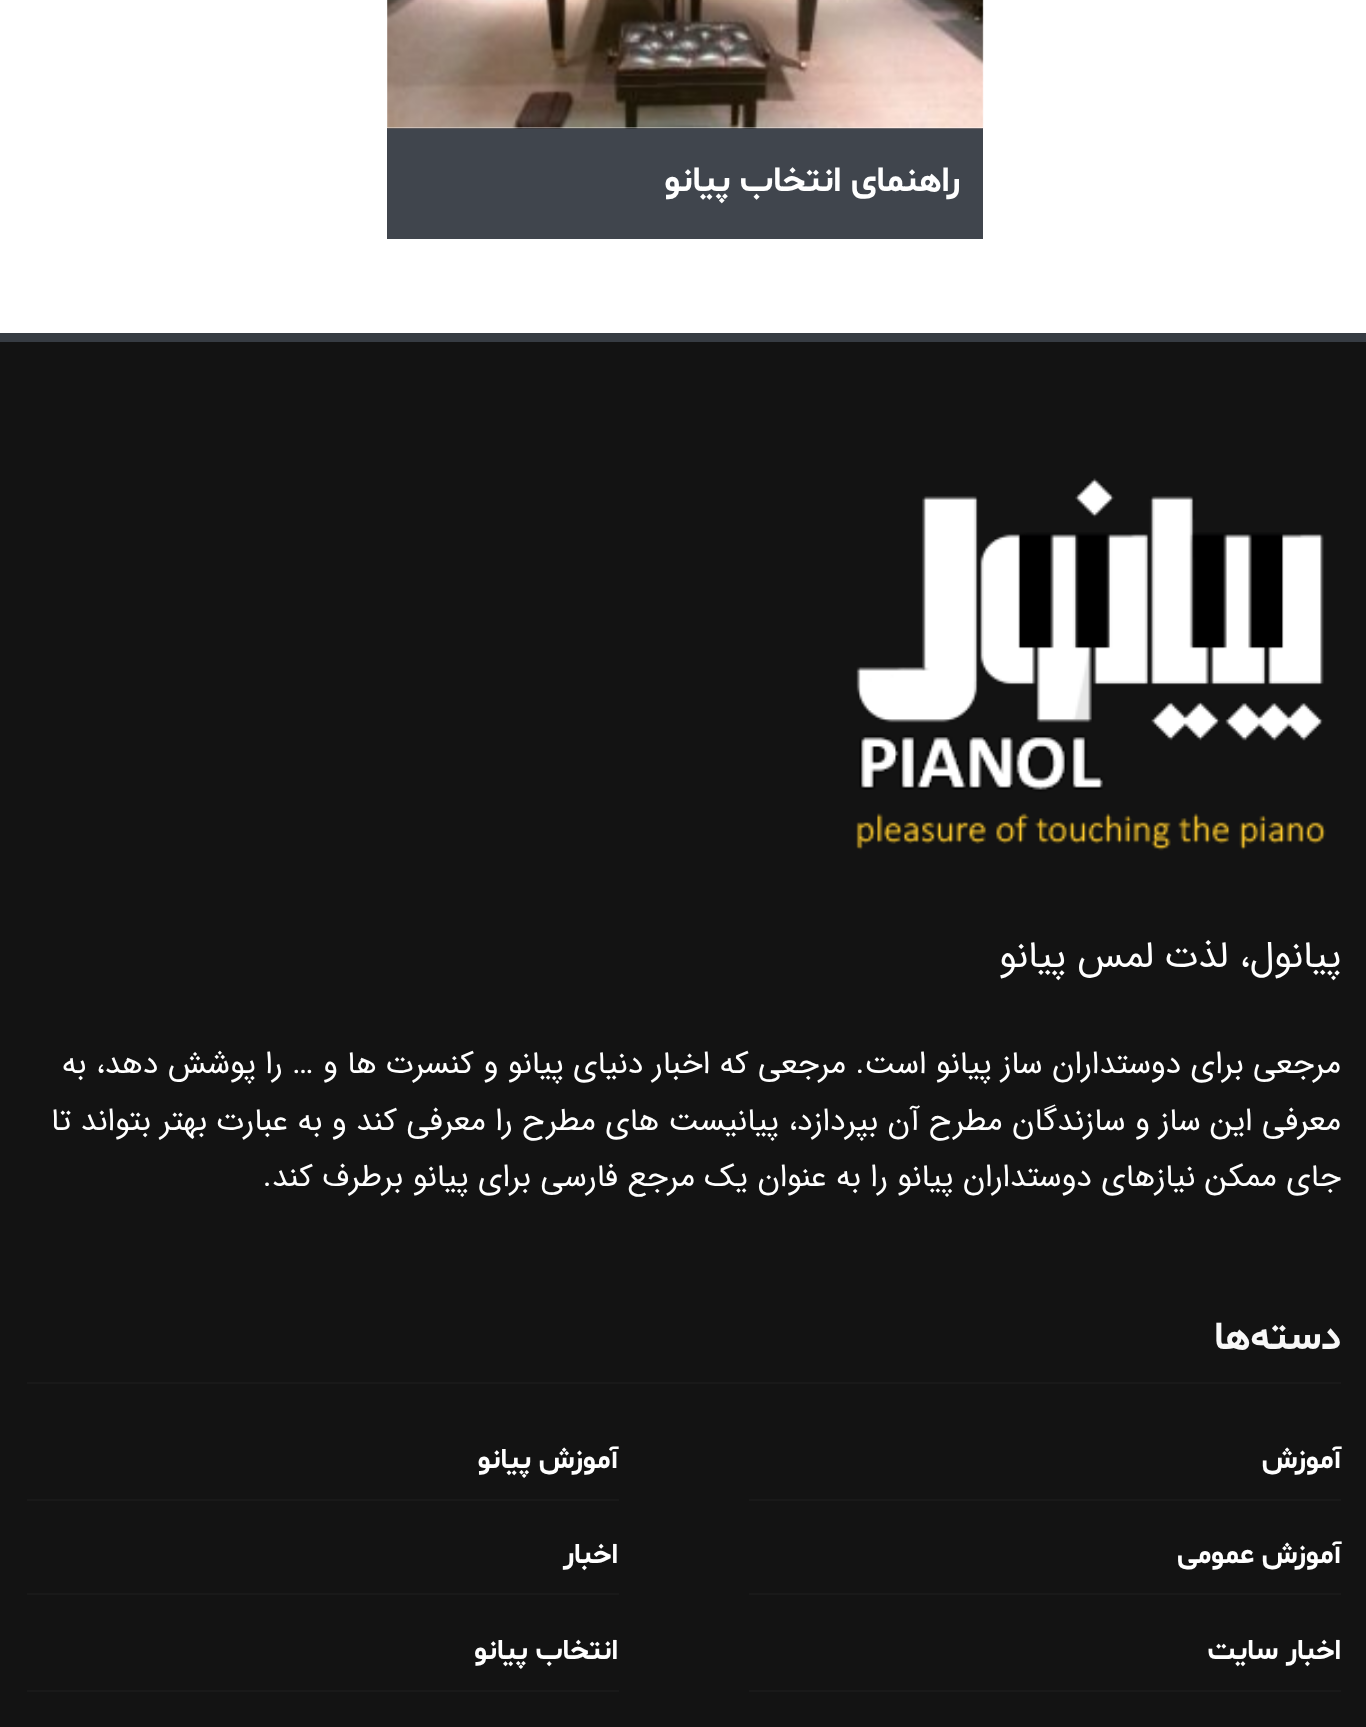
<!DOCTYPE html>
<meta charset="utf-8">
<style>body { margin: 0 } canvas { display: block }</style>
<canvas id="canvas" width="1366" height="1727"></canvas>
<script type="module">
  const canvas = document.getElementById("canvas");
  const ctx = canvas.getContext("2d");
  ctx.miterLimit = 4;
  ctx.fontKerning = "normal";
  async function loadImage(src) {
    const img = new Image();
    img.src = src;
    await img.decode();
    return img;
  }

  ctx.fillStyle = "#ffffff";
  ctx.fillRect(0, 0, 1366, 1727);
  ctx.fillStyle = "#40454d";
  ctx.fillRect(387, 128, 596, 111);
  ctx.drawImage(await loadImage("img2.png"), 387, 0, 597, 129);
  ctx.drawImage(await loadImage("img1.png"), 983, 0, 1, 128);
  ctx.direction = "rtl";
  ctx.font = "bold 36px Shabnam";
  ctx.fillStyle = "#ffffff";
  ctx.fillText("راهنمای انتخاب پیانو", 960, 191);
  ctx.fillStyle = "#131313";
  ctx.fillRect(0, 342, 1366, 1385);
  ctx.fillStyle = "#373c43";
  ctx.fillRect(0, 333, 1366, 9);
  ctx.drawImage(await loadImage("img3.png"), 856, 478, 470, 373);
  ctx.font = "37.75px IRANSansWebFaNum";
  ctx.fillStyle = "#ffffff";
  ctx.fillText("پیانول، لذت لمس پیانو", 1341, 967);
  ctx.font = "31.5px IRANSansWebFaNum";
  ctx.fillText("مرجعی برای دوستداران ساز پیانو است. مرجعی که اخبار دنیای پیانو و کنسرت ها و … را پوشش دهد، به", 1341, 1073);
  ctx.fillText("معرفی این ساز و سازندگان مطرح آن بپردازد، پیانیست های مطرح را معرفی کند و به عبارت بهتر بتواند تا", 1341, 1130);
  ctx.fillText("جای ممکن نیازهای دوستداران پیانو را به عنوان یک مرجع فارسی برای پیانو برطرف کند.", 1341, 1186);
  ctx.fillStyle = "#191919";
  ctx.fillRect(27, 1382, 1314, 2);
  ctx.font = "bold 40.5px Shabnam";
  ctx.fillStyle = "#f8f8f8";
  ctx.fillText("دسته‌ها", 1341, 1349);
  ctx.fillStyle = "#191919";
  ctx.fillRect(749, 1499, 592, 2);
  ctx.font = "bold 29.25px Shabnam";
  ctx.fillStyle = "#ffffff";
  ctx.fillText("آموزش", 1341, 1468);
  ctx.fillStyle = "#191919";
  ctx.fillRect(27, 1499, 592, 2);
  ctx.fillStyle = "#ffffff";
  ctx.fillText("آموزش پیانو", 618, 1468);
  ctx.fillStyle = "#191919";
  ctx.fillRect(749, 1593, 592, 2);
  ctx.fillStyle = "#ffffff";
  ctx.fillText("آموزش عمومی", 1341, 1563);
  ctx.fillStyle = "#191919";
  ctx.fillRect(27, 1593, 592, 2);
  ctx.fillStyle = "#ffffff";
  ctx.fillText("اخبار", 618, 1563);
  ctx.fillStyle = "#191919";
  ctx.fillRect(749, 1690, 592, 2);
  ctx.fillStyle = "#ffffff";
  ctx.fillText("اخبار سایت", 1341, 1659);
  ctx.fillStyle = "#191919";
  ctx.fillRect(27, 1690, 592, 2);
  ctx.fillStyle = "#ffffff";
  ctx.fillText("انتخاب پیانو", 618, 1659);
</script>
